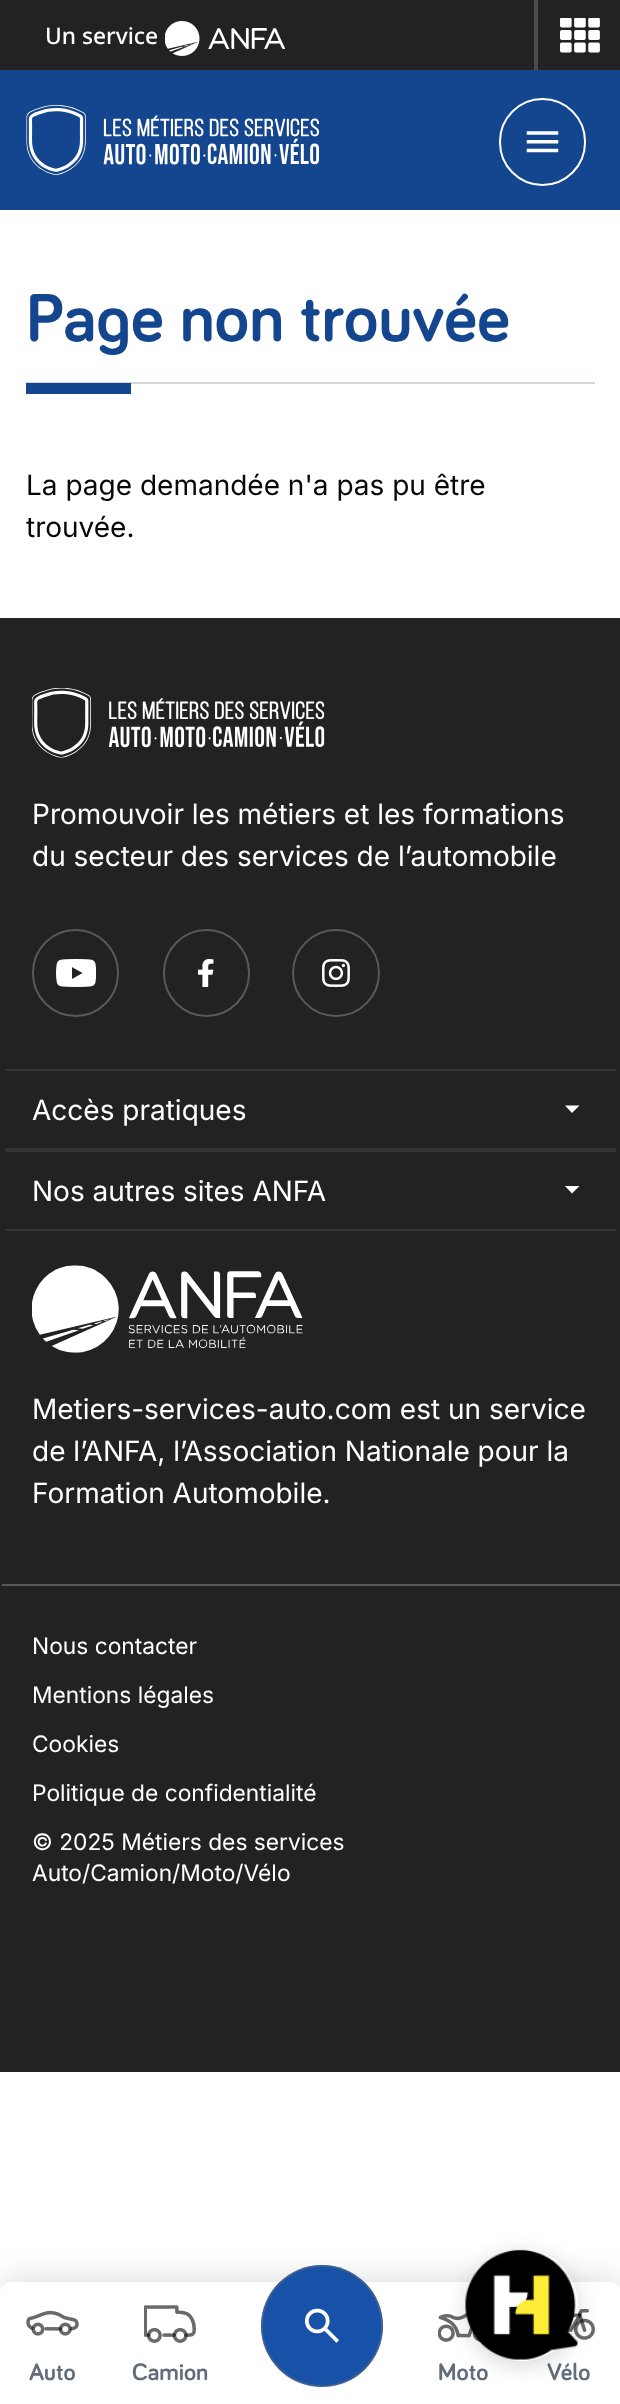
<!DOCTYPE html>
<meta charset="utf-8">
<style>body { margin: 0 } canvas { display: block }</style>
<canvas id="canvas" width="620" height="2404"></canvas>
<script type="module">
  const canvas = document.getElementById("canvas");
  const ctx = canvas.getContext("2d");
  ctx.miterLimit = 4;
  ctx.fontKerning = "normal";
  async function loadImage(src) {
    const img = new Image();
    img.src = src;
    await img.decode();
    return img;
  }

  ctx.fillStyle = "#ffffff";
  ctx.fillRect(0, 0, 620, 2404);
  ctx.fillStyle = "#222222";
  ctx.fillRect(0, 0, 620, 70);
  ctx.font = "500 22.75px Noto Sans";
  ctx.fillStyle = "#ffffff";
  ctx.fillText("Un service", 45, 44);
  ctx.drawImage(await loadImage("img1.png"), 165, 21, 120, 35);
  ctx.drawImage(await loadImage("img2.png"), 560, 18, 40, 35);
  ctx.fillStyle = "#4b4b4b";
  ctx.fillRect(534, 0, 4, 70);
  ctx.font = "bold 70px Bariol";
  ctx.fillStyle = "#14458f";
  ctx.fillText("Page non trouvée", 26, 341);
  ctx.fillStyle = "#d2d6da";
  ctx.fillRect(26, 382, 569, 2);
  ctx.fillStyle = "#14458f";
  ctx.fillRect(26, 383, 105, 11);
  ctx.font = "28px Inter";
  ctx.fillStyle = "#060708";
  ctx.fillText("La page demandée n'a pas pu être", 26, 495);
  ctx.fillText("trouvée.", 26, 537);
  ctx.fillStyle = "#222222";
  ctx.fillRect(0, 618, 620, 1454);
  ctx.drawImage(await loadImage("img3.png"), 32, 688, 293, 70);
  ctx.fillStyle = "#ffffff";
  ctx.fillText("Promouvoir les métiers et les formations", 32, 824);
  ctx.fillText("du secteur des services de l’automobile", 32, 866);
  ctx.beginPath();
  ctx.roundRect(33, 930, 85, 86, 42.5);
  ctx.strokeStyle = "#595959";
  ctx.lineWidth = 2;
  ctx.stroke();
  ctx.drawImage(await loadImage("img4.png"), 56, 959, 40, 28);
  ctx.beginPath();
  ctx.roundRect(164, 930, 85, 86, 42.5);
  ctx.stroke();
  ctx.drawImage(await loadImage("img5.png"), 198, 959, 16, 28);
  ctx.beginPath();
  ctx.arc(336, 973, 43, 0, Math.PI * 2);
  ctx.stroke();
  ctx.drawImage(await loadImage("img6.png"), 322, 959, 28, 28);
  ctx.fillStyle = "#333333";
  ctx.fillRect(5, 1069, 611, 2);
  ctx.fillRect(5, 1148, 611, 4);
  ctx.fillStyle = "#ffffff";
  ctx.fillText("Accès pratiques", 32, 1120);
  ctx.beginPath();
  ctx.moveTo(572, 1113);
  ctx.lineTo(565, 1105.5);
  ctx.lineTo(579.5, 1105.5);
  ctx.closePath();
  ctx.fill();
  ctx.fillStyle = "#333333";
  ctx.fillRect(5, 1229, 611, 2);
  ctx.fillStyle = "#ffffff";
  ctx.fillText("Nos autres sites ANFA", 32, 1201);
  ctx.beginPath();
  ctx.moveTo(572, 1193.5);
  ctx.lineTo(565, 1186);
  ctx.lineTo(579.5, 1186);
  ctx.closePath();
  ctx.fill();
  ctx.drawImage(await loadImage("img7.png"), 32, 1265, 271, 88);
  ctx.fillText("Metiers-services-auto.com est un service", 32, 1419);
  ctx.fillText("de l’ANFA, l’Association Nationale pour la", 32, 1461);
  ctx.fillText("Formation Automobile.", 32, 1503);
  ctx.fillStyle = "#595959";
  ctx.fillRect(2, 1584, 618, 2);
  ctx.font = "22.75px Inter";
  ctx.fillStyle = "#ffffff";
  ctx.fillText("Nous contacter", 32, 1654);
  ctx.fillText("Mentions légales", 32, 1703);
  ctx.fillText("Cookies", 32, 1752);
  ctx.fillText("Politique de confidentialité", 32, 1801);
  ctx.fillText("© 2025 Métiers des services", 32, 1850);
  ctx.fillText("Auto/Camion/Moto/Vélo", 32, 1881);
  ctx.fillStyle = "#14458f";
  ctx.fillRect(0, 70, 620, 140);
  ctx.drawImage(await loadImage("img8.png"), 26, 105, 293, 70);
  ctx.beginPath();
  ctx.roundRect(500, 99, 85, 86, 42.5);
  ctx.strokeStyle = "#ffffff";
  ctx.stroke();
  ctx.drawImage(await loadImage("img9.png"), 526, 131, 33, 22);
  ctx.fillStyle = "rgba(0, 0, 0, 0.16)";
  ctx.filter = "blur(17.5px)";
  ctx.beginPath();
  ctx.roundRect(0, 2282, 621, 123, 11);
  ctx.fill();
  ctx.filter = "none";
  ctx.fillStyle = "#ffffff";
  ctx.beginPath();
  ctx.moveTo(11, 2282);
  ctx.lineTo(610, 2282);
  ctx.bezierCurveTo(616, 2282, 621, 2287, 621, 2293);
  ctx.lineTo(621, 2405);
  ctx.lineTo(0, 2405);
  ctx.lineTo(0, 2293);
  ctx.bezierCurveTo(0, 2287, 5, 2282, 11, 2282);
  ctx.closePath();
  ctx.fill();
  ctx.drawImage(await loadImage("img10.png"), 26, 2310, 53, 26);
  ctx.font = "bold 24.5px Bariol";
  ctx.fillStyle = "#616d7a";
  ctx.fillText("Auto", 29, 2380);
  ctx.drawImage(await loadImage("img11.png"), 144, 2305, 52, 38);
  ctx.fillText("Camion", 132, 2380);
  ctx.fillStyle = "#1851a8";
  ctx.beginPath();
  ctx.arc(322, 2326, 61, 0, Math.PI * 2);
  ctx.fill();
  ctx.beginPath();
  ctx.arc(322, 2326, 60, 0, Math.PI * 2);
  ctx.strokeStyle = "rgba(97, 109, 122, 0.5)";
  ctx.stroke();
  ctx.drawImage(await loadImage("img12.png"), 304, 2308, 35, 35);
  ctx.drawImage(await loadImage("img13.png"), 438, 2305, 44, 37);
  ctx.fillStyle = "#616d7a";
  ctx.fillText("Moto", 438, 2380);
  ctx.drawImage(await loadImage("img14.png"), 567, 2309, 28, 31);
  ctx.fillText("Vélo", 547, 2380);
  ctx.save();
  ctx.beginPath();
  ctx.moveTo(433, 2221);
  ctx.lineTo(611, 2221);
  ctx.lineTo(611, 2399);
  ctx.lineTo(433, 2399);
  ctx.closePath();
  ctx.moveTo(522, 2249);
  ctx.bezierCurveTo(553, 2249, 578, 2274, 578, 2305);
  ctx.bezierCurveTo(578, 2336, 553, 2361, 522, 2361);
  ctx.bezierCurveTo(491, 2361, 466, 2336, 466, 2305);
  ctx.bezierCurveTo(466, 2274, 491, 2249, 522, 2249);
  ctx.closePath();
  ctx.clip("evenodd");
  ctx.fillStyle = "rgba(0, 0, 0, 0.15)";
  ctx.filter = "blur(10.5px)";
  ctx.beginPath();
  ctx.roundRect(466, 2254, 112, 112, 56);
  ctx.fill();
  ctx.filter = "none";
  ctx.restore();
  ctx.drawImage(await loadImage("img15.png"), 465, 2249, 113, 111);
</script>
